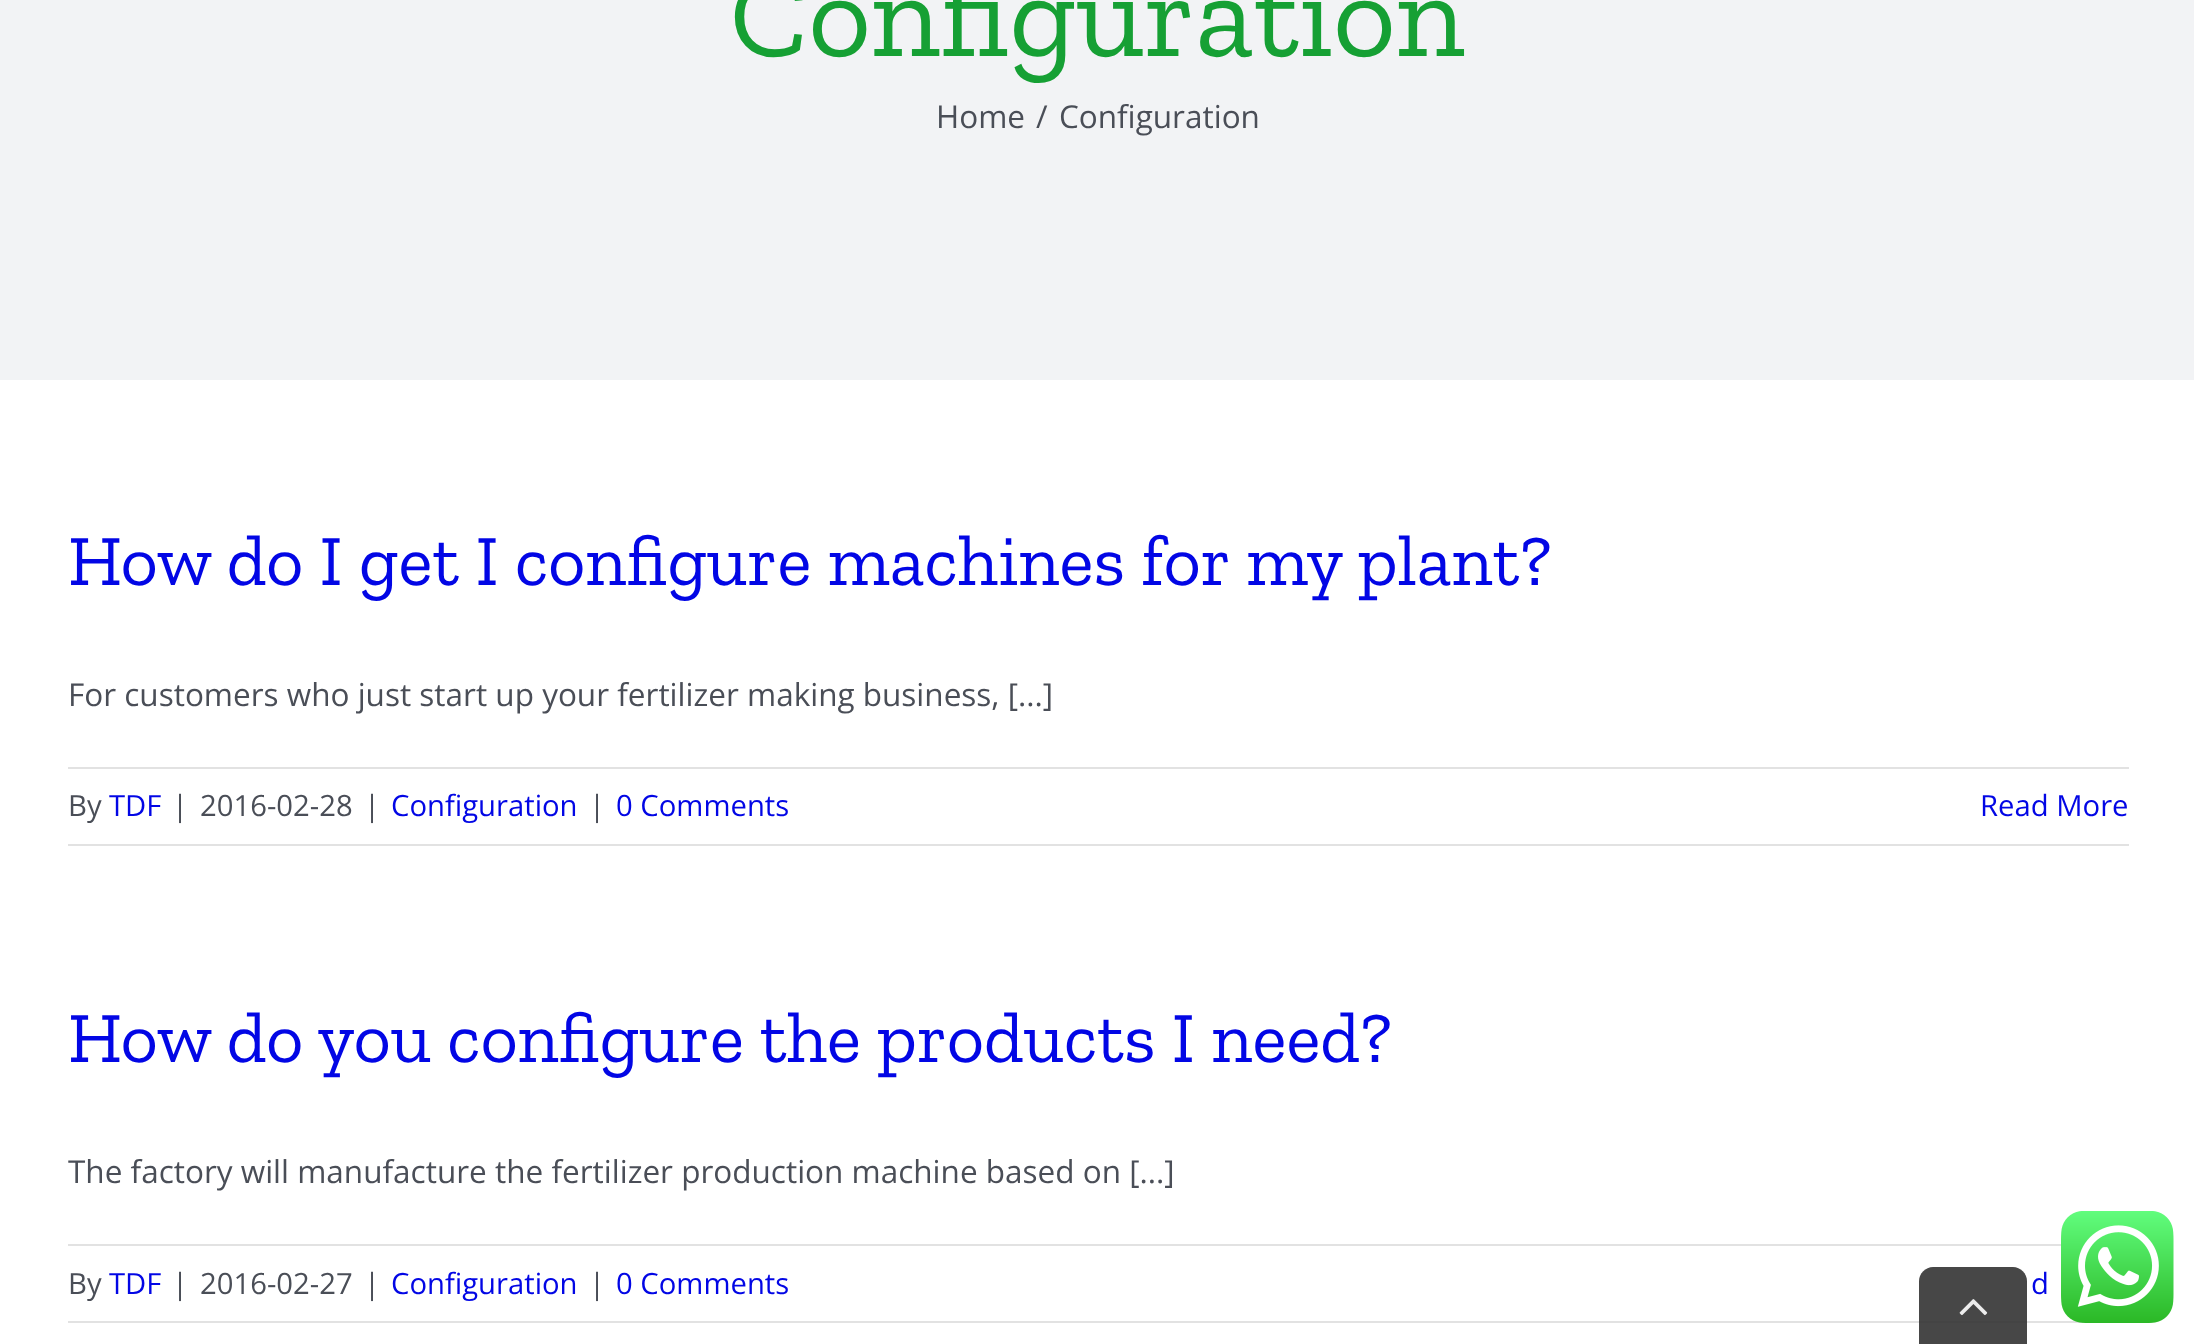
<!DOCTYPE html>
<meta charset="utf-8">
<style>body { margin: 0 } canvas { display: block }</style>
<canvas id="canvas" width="2194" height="1344"></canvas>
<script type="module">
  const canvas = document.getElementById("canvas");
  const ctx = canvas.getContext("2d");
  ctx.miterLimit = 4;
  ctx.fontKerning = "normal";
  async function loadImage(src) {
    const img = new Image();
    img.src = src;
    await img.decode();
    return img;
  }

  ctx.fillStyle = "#ffffff";
  ctx.fillRect(0, 0, 2194, 1344);
  ctx.fillStyle = "#f2f3f5";
  ctx.fillRect(0, 0, 2194, 380);
  ctx.font = "121.5px Zilla Slab";
  ctx.fillStyle = "#16a034";
  ctx.fillText("Configuration", 730, 56);
  ctx.font = "31.5px Open Sans";
  ctx.fillStyle = "#4a4e57";
  ctx.fillText("Home", 936, 128);
  ctx.fillText("/", 1036, 128);
  ctx.fillText("Configuration", 1059, 128);
  ctx.font = "72px Zilla Slab";
  ctx.fillStyle = "#0206e5";
  ctx.fillText("How do I get I configure machines for my plant?", 68, 585);
  ctx.font = "31.5px Open Sans";
  ctx.fillStyle = "#4a4e57";
  ctx.fillText("For customers who just start up your fertilizer making business, [...]", 68, 706);
  ctx.fillStyle = "#e2e2e2";
  ctx.fillRect(68, 767, 2061, 2);
  ctx.fillRect(68, 844, 2061, 2);
  ctx.font = "29.25px Open Sans";
  ctx.fillStyle = "#4a4e57";
  ctx.fillText("By", 68, 816);
  ctx.fillStyle = "#0206e5";
  ctx.fillText("TDF", 109, 816);
  ctx.fillStyle = "#4a4e57";
  ctx.fillText("|", 172, 816);
  ctx.fillText("2016-02-28", 200, 816);
  ctx.fillText("|", 364, 816);
  ctx.fillStyle = "#0206e5";
  ctx.fillText("Configuration", 391, 816);
  ctx.fillStyle = "#4a4e57";
  ctx.fillText("|", 589, 816);
  ctx.fillStyle = "#0206e5";
  ctx.fillText("0 Comments", 616, 816);
  ctx.fillText("Read More", 1980, 816);
  ctx.font = "72px Zilla Slab";
  ctx.fillText("How do you configure the products I need?", 68, 1062);
  ctx.font = "31.5px Open Sans";
  ctx.fillStyle = "#4a4e57";
  ctx.fillText("The factory will manufacture the fertilizer production machine based on [...]", 68, 1183);
  ctx.fillStyle = "#e2e2e2";
  ctx.fillRect(68, 1244, 1993, 2);
  ctx.fillRect(68, 1321, 2017, 2);
  ctx.font = "29.25px Open Sans";
  ctx.fillStyle = "#4a4e57";
  ctx.fillText("By", 68, 1294);
  ctx.fillStyle = "#0206e5";
  ctx.fillText("TDF", 109, 1294);
  ctx.fillStyle = "#4a4e57";
  ctx.fillText("|", 172, 1294);
  ctx.fillText("2016-02-27", 200, 1294);
  ctx.fillText("|", 364, 1294);
  ctx.fillStyle = "#0206e5";
  ctx.fillText("Configuration", 391, 1294);
  ctx.fillStyle = "#4a4e57";
  ctx.fillText("|", 589, 1294);
  ctx.fillStyle = "#0206e5";
  ctx.fillText("0 Comments", 616, 1294);
  ctx.fillText("d", 2031, 1294);
  ctx.fillStyle = "rgba(51, 51, 51, 0.9)";
  ctx.beginPath();
  ctx.moveTo(1933, 1267);
  ctx.lineTo(2013, 1267);
  ctx.bezierCurveTo(2020.5, 1267, 2027, 1273.5, 2027, 1281);
  ctx.lineTo(2027, 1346);
  ctx.lineTo(1919, 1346);
  ctx.lineTo(1919, 1281);
  ctx.bezierCurveTo(1919, 1273.5, 1925.5, 1267, 1933, 1267);
  ctx.closePath();
  ctx.fill();
  ctx.drawImage(await loadImage("img1.png"), 1959, 1299, 29, 17);
  ctx.drawImage(await loadImage("img2.png"), 2061, 1211, 113, 112);
</script>
